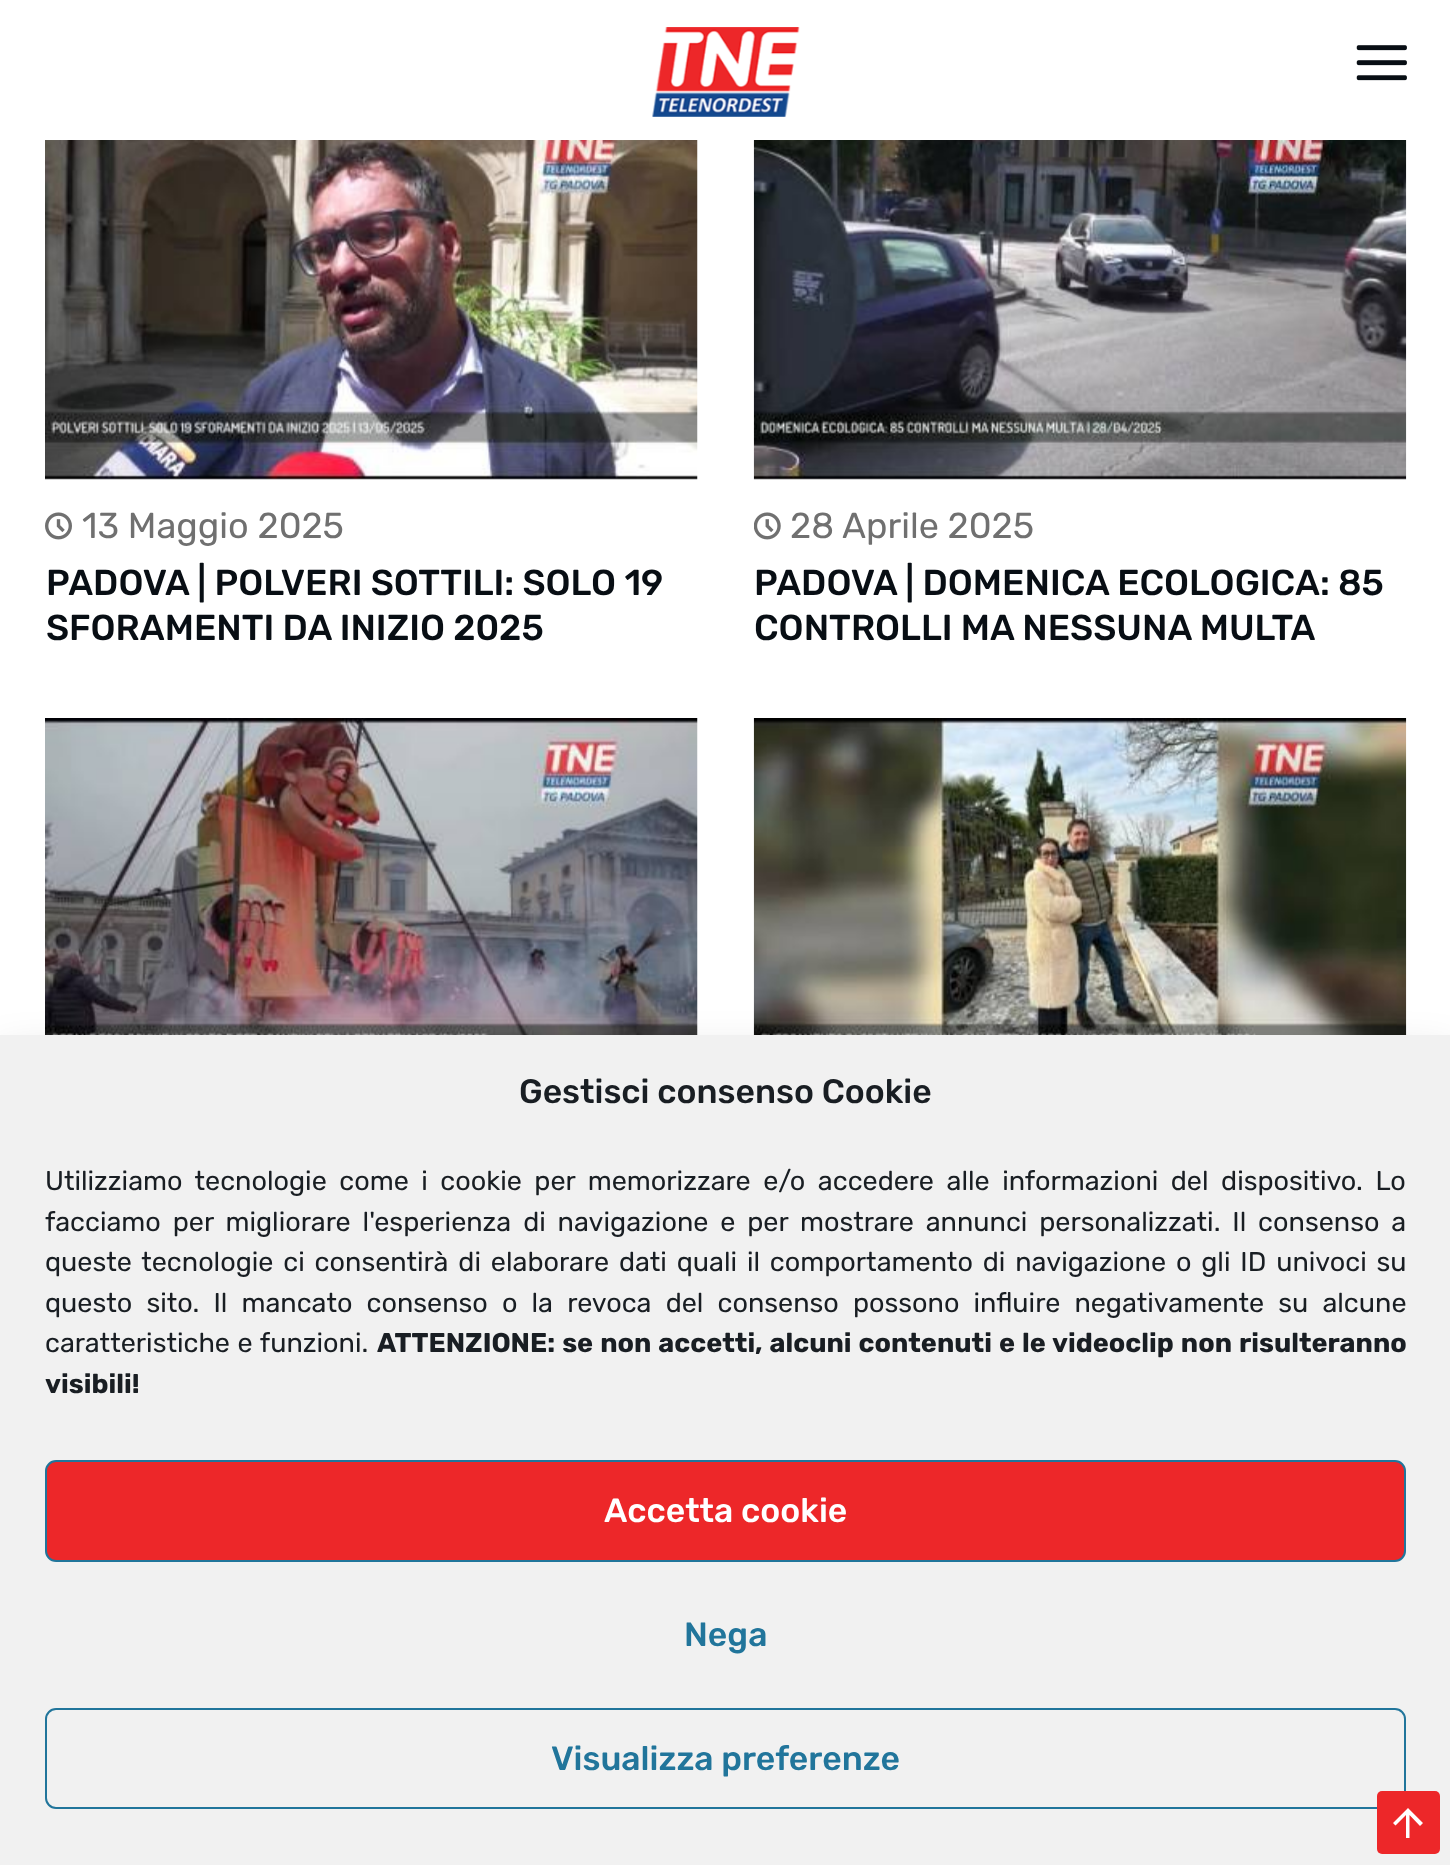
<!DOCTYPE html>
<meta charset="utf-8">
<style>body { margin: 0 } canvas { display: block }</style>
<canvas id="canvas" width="1450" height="1865"></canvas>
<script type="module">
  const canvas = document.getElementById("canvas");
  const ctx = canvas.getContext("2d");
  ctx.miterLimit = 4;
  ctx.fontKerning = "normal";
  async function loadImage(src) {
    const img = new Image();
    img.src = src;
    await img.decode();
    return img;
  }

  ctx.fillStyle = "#ffffff";
  ctx.fillRect(0, 0, 1450, 1865);
  ctx.drawImage(await loadImage("img1.png"), 652, 27, 148, 90);
  ctx.drawImage(await loadImage("img2.png"), 1356, 45, 51, 36);
  ctx.drawImage(await loadImage("img3.png"), 45, 140, 653, 340);
  ctx.drawImage(await loadImage("img4.png"), 45, 512, 27, 28);
  ctx.font = "36px Rubik";
  ctx.fillStyle = "#707070";
  ctx.fillText("13 Maggio 2025", 82, 538);
  ctx.font = "500 36px Rubik";
  ctx.fillStyle = "#080e14";
  ctx.fillText("PADOVA | POLVERI SOTTILI: SOLO 19", 46, 595);
  ctx.fillText("SFORAMENTI DA INIZIO 2025", 46, 640);
  ctx.drawImage(await loadImage("img5.png"), 753, 140, 654, 340);
  ctx.drawImage(await loadImage("img6.png"), 754, 512, 27, 28);
  ctx.font = "36px Rubik";
  ctx.fillStyle = "#707070";
  ctx.fillText("28 Aprile 2025", 790, 538);
  ctx.font = "500 36px Rubik";
  ctx.fillStyle = "#080e14";
  ctx.fillText("PADOVA | DOMENICA ECOLOGICA: 85", 754, 595);
  ctx.fillText("CONTROLLI MA NESSUNA MULTA", 754, 640);
  ctx.drawImage(await loadImage("img7.png"), 45, 718, 653, 317);
  ctx.drawImage(await loadImage("img8.png"), 753, 718, 654, 317);
  ctx.fillStyle = "rgba(0, 0, 0, 0.19)";
  ctx.filter = "blur(22.5px)";
  ctx.beginPath();
  ctx.rect(0, 1058, 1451, 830);
  ctx.fill();
  ctx.filter = "none";
  ctx.fillStyle = "#f1f1f1";
  ctx.fillRect(0, 1035, 1450, 830);
  ctx.font = "500 33.75px Rubik";
  ctx.fillStyle = "#191e23";
  ctx.fillText("Gestisci consenso Cookie", 519, 1103);
  ctx.wordSpacing = "5.9px";
  ctx.font = "27px Rubik";
  ctx.fillText("Utilizziamo tecnologie come i cookie per memorizzare e/o accedere alle informazioni del dispositivo. Lo", 45, 1190);
  ctx.wordSpacing = "5.25px";
  ctx.fillText("facciamo per migliorare l'esperienza di navigazione e per mostrare annunci personalizzati. Il consenso a", 45, 1231);
  ctx.wordSpacing = "3.25px";
  ctx.fillText("queste tecnologie ci consentirà di elaborare dati quali il comportamento di navigazione o gli ID univoci su", 45, 1271);
  ctx.wordSpacing = "7.5px";
  ctx.fillText("questo sito. Il mancato consenso o la revoca del consenso possono influire negativamente su alcune", 45, 1312);
  ctx.wordSpacing = "1px";
  ctx.fillText("caratteristiche e funzioni.", 45, 1352);
  ctx.wordSpacing = "1.25px";
  ctx.font = "bold 27px Rubik";
  ctx.fillText("ATTENZIONE: se non accetti, alcuni contenuti e le videoclip non risulteranno", 377, 1352);
  ctx.wordSpacing = "0px";
  ctx.fillText("visibili!", 45, 1393);
  ctx.fillStyle = "#ed2729";
  ctx.beginPath();
  ctx.roundRect(46, 1461, 1359, 100, 10);
  ctx.fill();
  ctx.strokeStyle = "#21759b";
  ctx.lineWidth = 2;
  ctx.stroke();
  ctx.font = "500 33.75px Rubik";
  ctx.fillStyle = "#ffffff";
  ctx.fillText("Accetta cookie", 604, 1522);
  ctx.fillStyle = "#21759b";
  ctx.fillText("Nega", 684, 1646);
  ctx.beginPath();
  ctx.roundRect(46, 1709, 1359, 99, 10);
  ctx.stroke();
  ctx.fillText("Visualizza preferenze", 551, 1770);
  ctx.fillStyle = "#ed2729";
  ctx.beginPath();
  ctx.roundRect(1377, 1791, 63, 63, 5);
  ctx.fill();
  ctx.fillStyle = "#ffffff";
  ctx.beginPath();
  ctx.moveTo(1409.5, 1838);
  ctx.lineTo(1406, 1838);
  ctx.lineTo(1406, 1815);
  ctx.lineTo(1395.5, 1825.5);
  ctx.lineTo(1393, 1823);
  ctx.lineTo(1408, 1808);
  ctx.lineTo(1423, 1823);
  ctx.lineTo(1420, 1826);
  ctx.lineTo(1409.5, 1815);
  ctx.closePath();
  ctx.fill();
</script>
